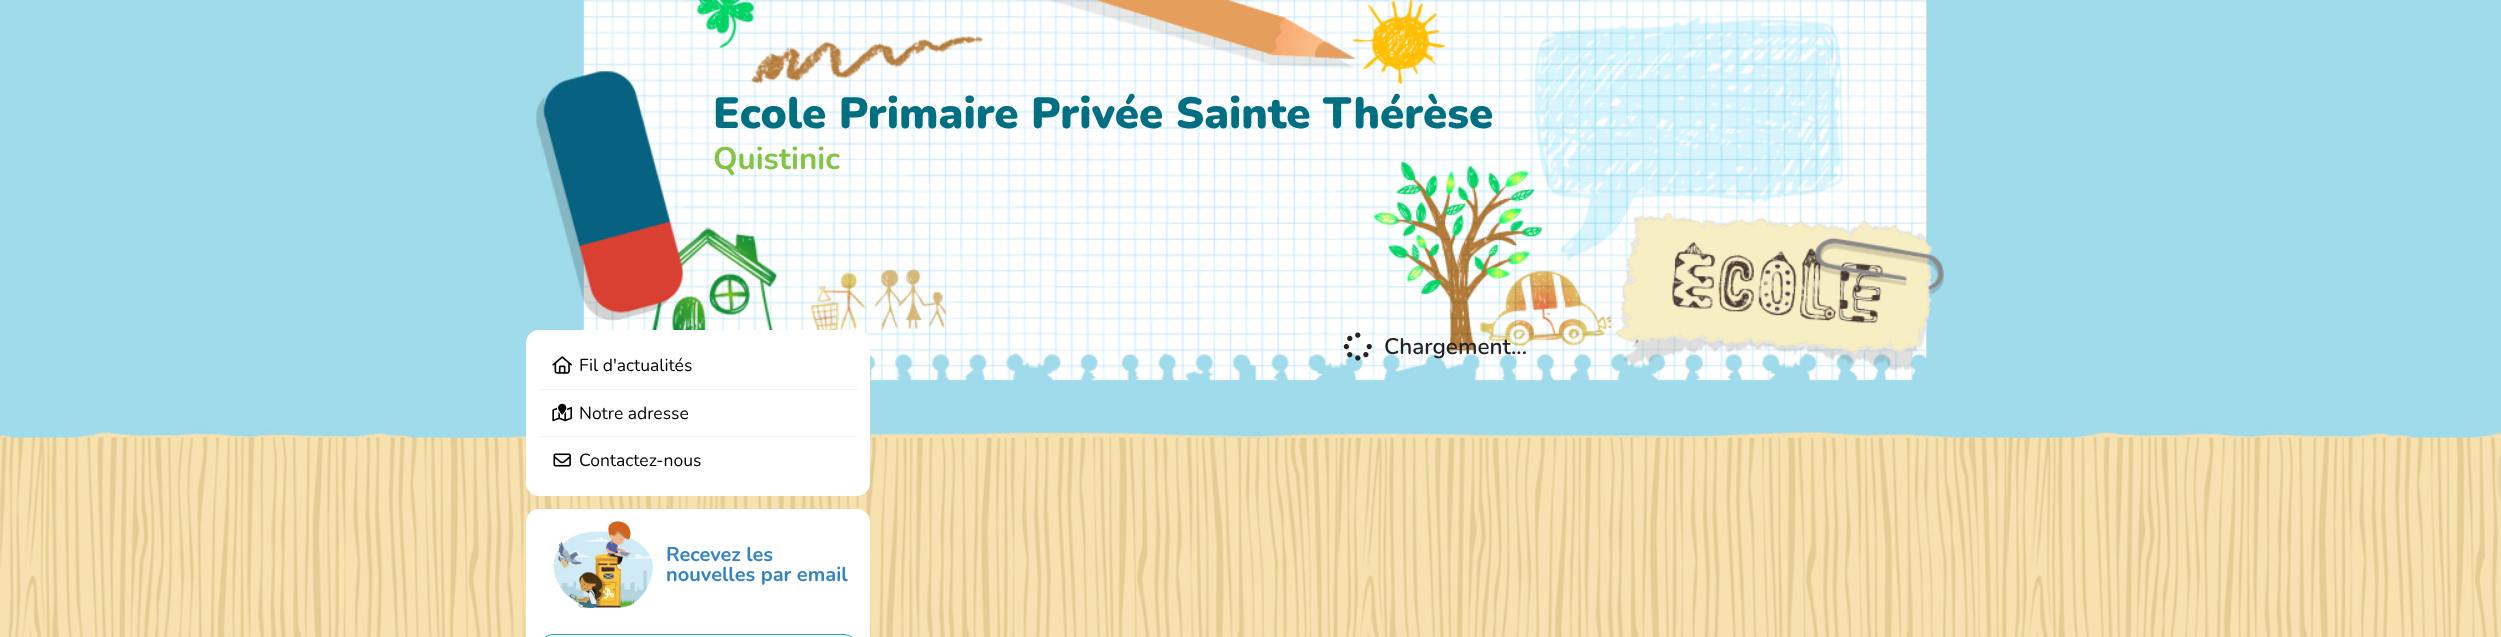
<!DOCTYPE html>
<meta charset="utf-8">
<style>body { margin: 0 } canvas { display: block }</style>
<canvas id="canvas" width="2501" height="637"></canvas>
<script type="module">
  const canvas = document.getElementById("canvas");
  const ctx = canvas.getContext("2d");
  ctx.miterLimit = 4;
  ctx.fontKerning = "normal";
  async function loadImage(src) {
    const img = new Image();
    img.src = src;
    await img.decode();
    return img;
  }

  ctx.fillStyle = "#ffffff";
  ctx.fillRect(0, 0, 2501, 637);
  ctx.drawImage(await loadImage("img1.png"), 0, 437, 2501, 200);
  ctx.drawImage(await loadImage("img3.png"), 0, 0, 1252, 438);
  ctx.drawImage(await loadImage("img4.png"), 1251, 0, 1250, 438);
  ctx.drawImage(await loadImage("img2.png"), 451, 0, 1601, 438);
  ctx.font = "900 43.75px Nunito";
  ctx.fillStyle = "#006f82";
  ctx.fillText("Ecole Primaire Privée Sainte Thérèse", 713, 128);
  ctx.font = "bold 31.25px Nunito";
  ctx.fillStyle = "#85c344";
  ctx.fillText("Quistinic", 713, 169);
  ctx.drawImage(await loadImage("img5.png"), 1343, 332, 29, 29);
  ctx.font = "600 22.5px Nunito";
  ctx.fillStyle = "#222222";
  ctx.fillText("Chargement...", 1384, 354);
  ctx.fillStyle = "#ffffff";
  ctx.beginPath();
  ctx.roundRect(526, 330, 344, 166, 13);
  ctx.fill();
  ctx.fillStyle = "#f3f3f3";
  ctx.fillRect(539, 389, 319, 1);
  ctx.drawImage(await loadImage("img6.png"), 552, 356, 20, 18);
  ctx.font = "17.5px Nunito";
  ctx.fillStyle = "#000000";
  ctx.fillText("Fil d'actualités", 579, 371);
  ctx.fillStyle = "#f3f3f3";
  ctx.fillRect(539, 436, 319, 1);
  ctx.drawImage(await loadImage("img7.png"), 552, 403, 21, 19);
  ctx.fillStyle = "#000000";
  ctx.fillText("Notre adresse", 579, 419);
  ctx.drawImage(await loadImage("img8.png"), 553, 453, 18, 14);
  ctx.fillText("Contactez-nous", 579, 466);
  ctx.fillStyle = "#ffffff";
  ctx.beginPath();
  ctx.roundRect(526, 509, 344, 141, 13);
  ctx.fill();
  ctx.drawImage(await loadImage("img9.png"), 539, 521, 114, 88);
  ctx.font = "bold 20px Nunito";
  ctx.fillStyle = "#3484c6";
  ctx.fillText("Recevez les", 666, 561);
  ctx.fillText("nouvelles par email", 666, 581);
  ctx.beginPath();
  ctx.roundRect(539.5, 634.5, 318, 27, 23);
  ctx.strokeStyle = "#14b0bf";
  ctx.stroke();
  ctx.fillStyle = "rgba(0, 0, 0, 0.2)";
  ctx.filter = "blur(2px)";
  ctx.beginPath();
  ctx.roundRect(2501, 444, 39, 65, 32.5);
  ctx.fill();
  ctx.filter = "none";
</script>
